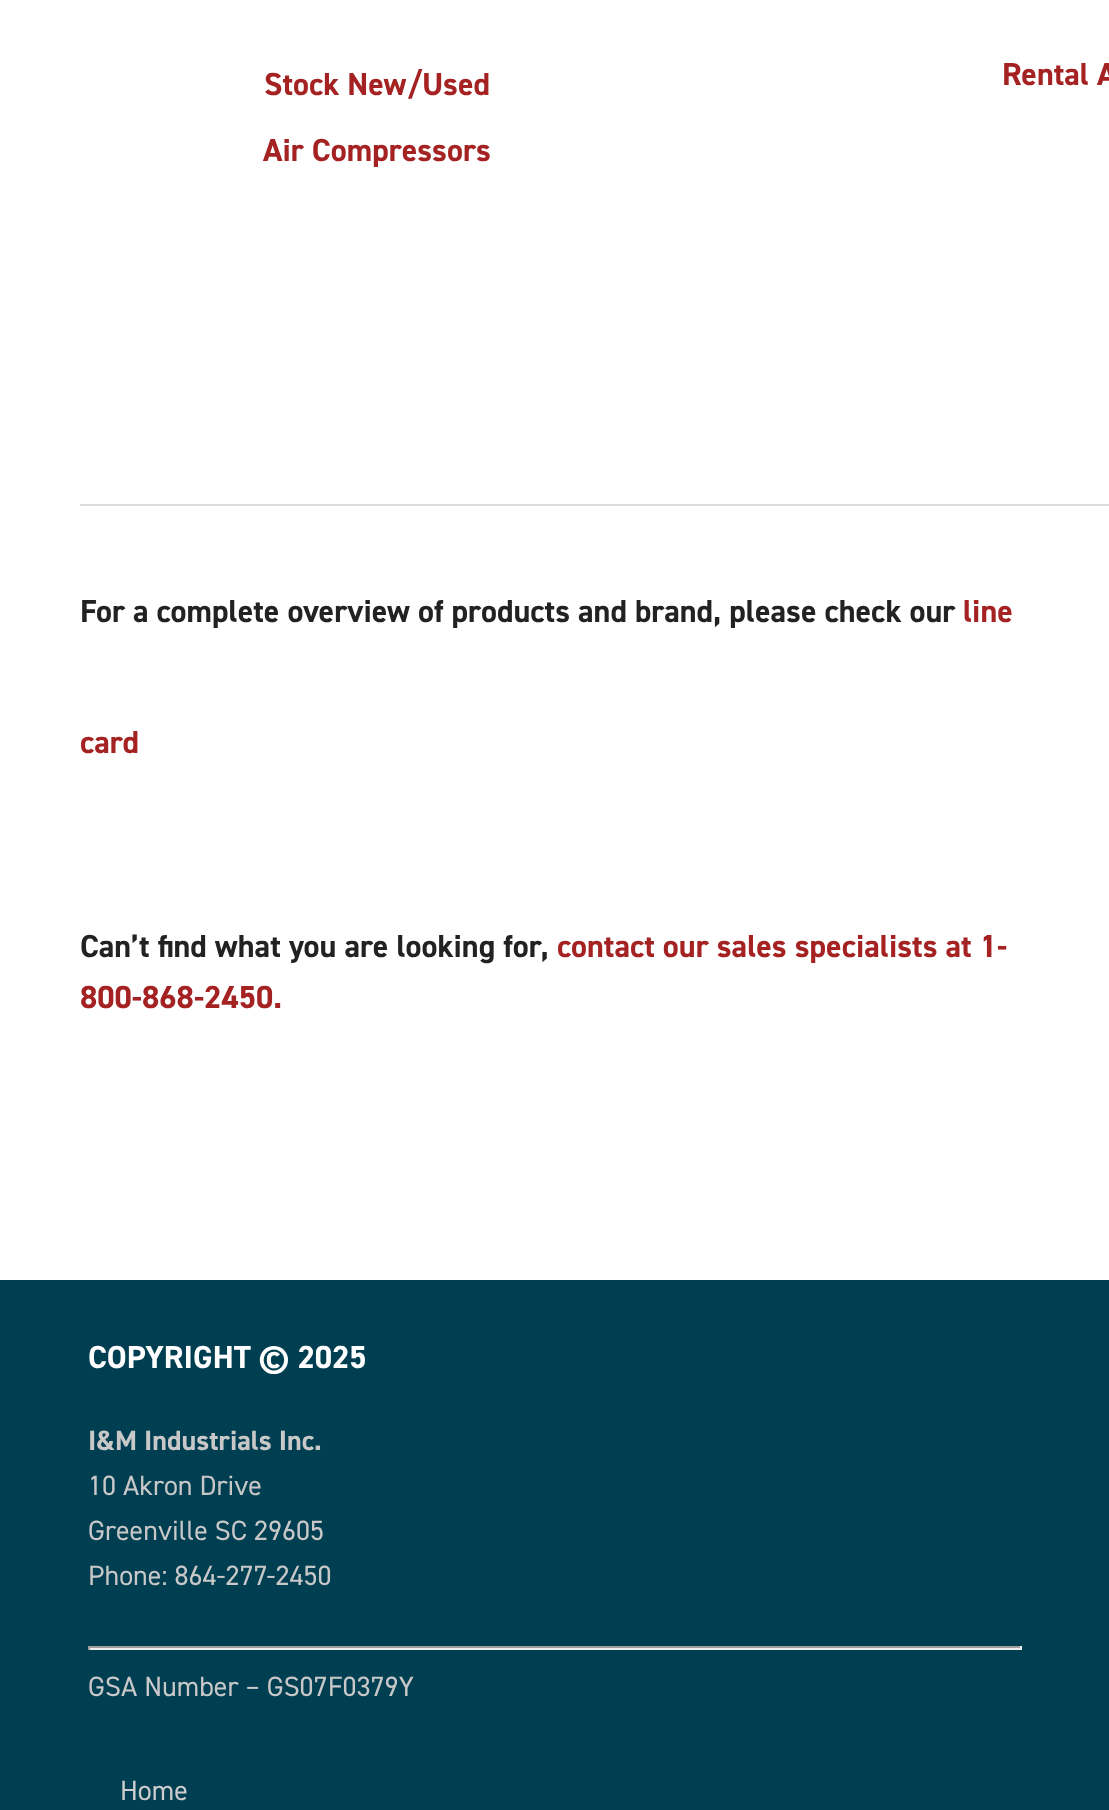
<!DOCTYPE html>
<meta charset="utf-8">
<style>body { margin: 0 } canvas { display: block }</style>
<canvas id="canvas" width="1109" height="1810"></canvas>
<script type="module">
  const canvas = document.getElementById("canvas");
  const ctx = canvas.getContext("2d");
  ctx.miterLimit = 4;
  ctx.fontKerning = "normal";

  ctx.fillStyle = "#003e51";
  ctx.fillRect(0, 0, 1109, 1810);
  ctx.strokeStyle = "#ffffff";
  ctx.lineWidth = 2;
  ctx.strokeRect(-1, -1, 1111, 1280);
  ctx.fillStyle = "#ffffff";
  ctx.fillRect(0, 0, 1109, 1278);
  ctx.fillStyle = "#dddddd";
  ctx.fillRect(80, 504, 1029, 2);
  ctx.font = "bold 32px 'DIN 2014'";
  ctx.fillStyle = "#a52223";
  ctx.fillText("Stock New/Used", 264, 95);
  ctx.fillText("Air Compressors", 263, 161);
  ctx.fillText("Rental A", 1002, 85);
  ctx.fillStyle = "#222222";
  ctx.fillText("For a complete overview of products and brand, please check our", 80, 622);
  ctx.fillStyle = "#a52223";
  ctx.fillText("line", 963, 622);
  ctx.fillText("card", 80, 753);
  ctx.fillStyle = "#222222";
  ctx.fillText("Can’t find what you are looking for,", 80, 957);
  ctx.fillStyle = "#a52223";
  ctx.fillText("contact our sales specialists at 1-", 557, 957);
  ctx.fillText("800-868-2450.", 80, 1008);
  ctx.fillStyle = "#ffffff";
  ctx.fillText("COPYRIGHT © 2025", 88, 1368);
  ctx.font = "bold 28px 'DIN 2014'";
  ctx.fillStyle = "#c8c8c8";
  ctx.fillText("I&M Industrials Inc.", 88, 1450);
  ctx.font = "28px 'DIN 2014'";
  ctx.fillText("10 Akron Drive", 88, 1495);
  ctx.fillText("Greenville SC 29605", 88, 1540);
  ctx.fillText("Phone: 864-277-2450", 88, 1585);
  ctx.fillStyle = "#9f9f9f";
  ctx.fillRect(88, 1646, 934, 2);
  ctx.fillStyle = "#eeeeee";
  ctx.fillRect(1020, 1646, 2, 4);
  ctx.fillRect(88, 1648, 934, 2);
  ctx.fillStyle = "#9f9f9f";
  ctx.fillRect(88, 1646, 2, 4);
  ctx.fillStyle = "#c8c8c8";
  ctx.fillText("GSA Number – GS07F0379Y", 88, 1696);
  ctx.fillStyle = "#cdcdce";
  ctx.fillText("Home", 120, 1800);
</script>
